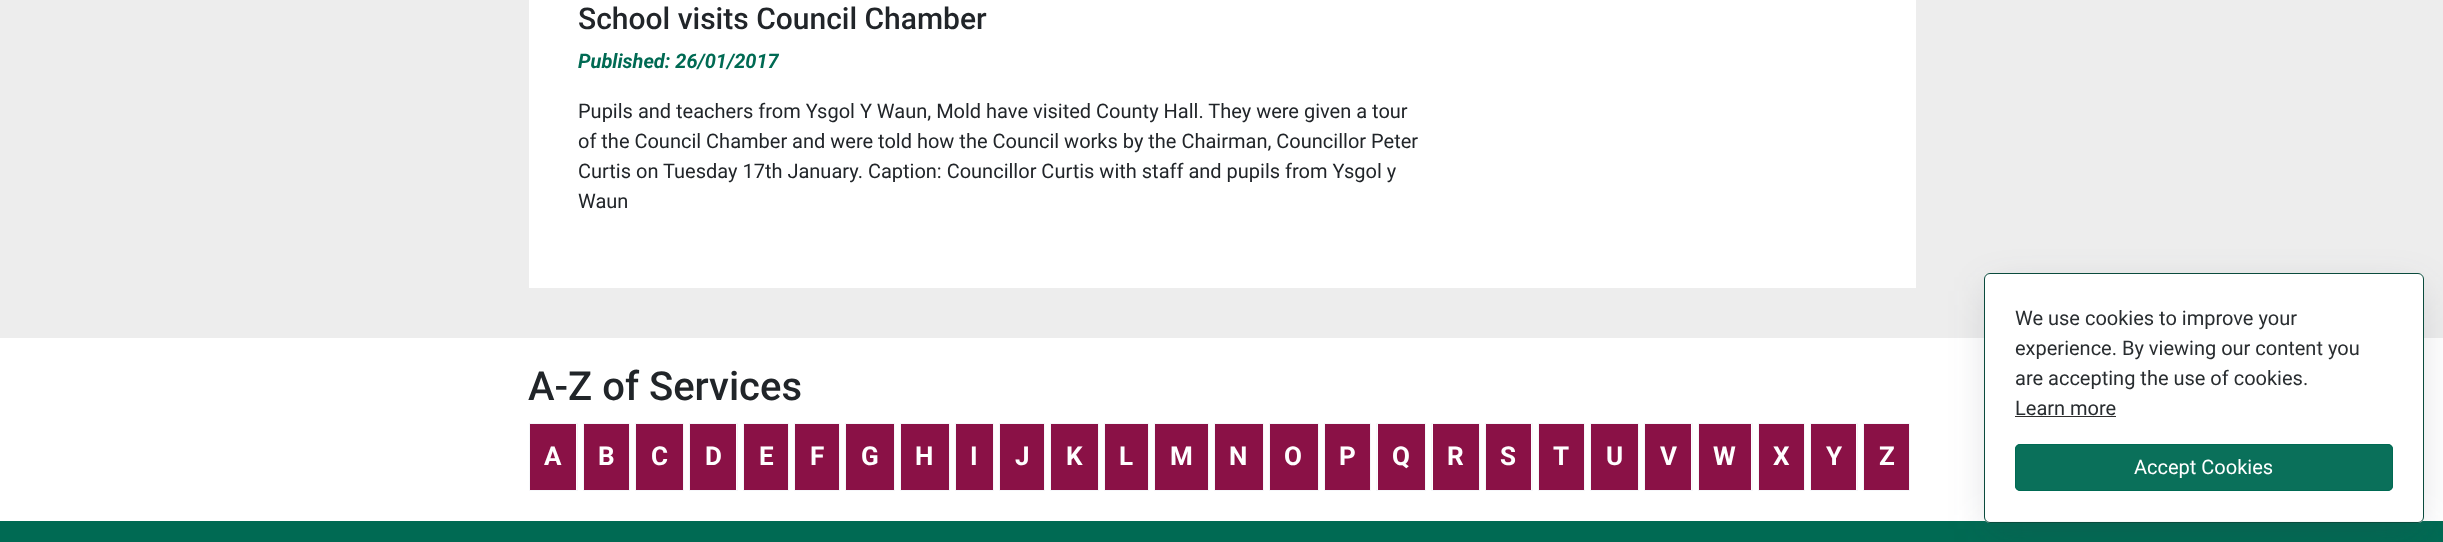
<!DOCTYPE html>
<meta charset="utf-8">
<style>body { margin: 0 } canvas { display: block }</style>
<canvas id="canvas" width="2443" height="542"></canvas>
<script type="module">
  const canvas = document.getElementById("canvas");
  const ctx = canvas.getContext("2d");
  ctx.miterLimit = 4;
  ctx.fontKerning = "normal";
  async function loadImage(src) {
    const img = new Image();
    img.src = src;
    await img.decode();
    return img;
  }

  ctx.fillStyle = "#ededed";
  ctx.fillRect(0, 0, 2443, 542);
  ctx.fillStyle = "#ffffff";
  ctx.fillRect(529, 0, 1387, 288);
  ctx.font = "500 30px Roboto";
  ctx.fillStyle = "#212529";
  ctx.fillText("School visits Council Chamber", 578, 29);
  ctx.font = "italic bold 20px Roboto";
  ctx.fillStyle = "#006a53";
  ctx.fillText("Published: 26/01/2017", 578, 68);
  ctx.font = "20px Roboto";
  ctx.fillStyle = "#212529";
  ctx.fillText("Pupils and teachers from Ysgol Y Waun, Mold have visited County Hall. They were given a tour", 578, 118);
  ctx.fillText("of the Council Chamber and were told how the Council works by the Chairman, Councillor Peter", 578, 148);
  ctx.fillText("Curtis on Tuesday 17th January. Caption: Councillor Curtis with staff and pupils from Ysgol y", 578, 178);
  ctx.fillText("Waun", 578, 208);
  ctx.fillStyle = "#ffffff";
  ctx.fillRect(0, 338, 2443, 183);
  ctx.font = "500 40px Roboto";
  ctx.fillStyle = "#212529";
  ctx.fillText("A-Z of Services", 528, 400);
  ctx.strokeStyle = "#f6f7fa";
  ctx.strokeRect(529.5, 423.5, 48, 67);
  ctx.fillStyle = "#8a1146";
  ctx.fillRect(530, 424, 46, 66);
  ctx.font = "bold 26px Roboto";
  ctx.fillStyle = "#ffffff";
  ctx.fillText("A", 544, 465);
  ctx.strokeRect(583.5, 423.5, 46, 67);
  ctx.fillStyle = "#8a1146";
  ctx.fillRect(584, 424, 45, 66);
  ctx.fillStyle = "#ffffff";
  ctx.fillText("B", 598, 465);
  ctx.strokeRect(635.5, 423.5, 48, 67);
  ctx.fillStyle = "#8a1146";
  ctx.fillRect(636, 424, 47, 66);
  ctx.fillStyle = "#ffffff";
  ctx.fillText("C", 651, 465);
  ctx.strokeRect(689.5, 423.5, 48, 67);
  ctx.fillStyle = "#8a1146";
  ctx.fillRect(690, 424, 46, 66);
  ctx.fillStyle = "#ffffff";
  ctx.fillText("D", 705, 465);
  ctx.strokeRect(743.5, 423.5, 45, 67);
  ctx.fillStyle = "#8a1146";
  ctx.fillRect(744, 424, 44, 66);
  ctx.fillStyle = "#ffffff";
  ctx.fillText("E", 759, 465);
  ctx.strokeRect(794.5, 423.5, 45, 67);
  ctx.fillStyle = "#8a1146";
  ctx.fillRect(795, 424, 44, 66);
  ctx.fillStyle = "#ffffff";
  ctx.fillText("F", 810, 465);
  ctx.strokeRect(845.5, 423.5, 49, 67);
  ctx.fillStyle = "#8a1146";
  ctx.fillRect(846, 424, 48, 66);
  ctx.fillStyle = "#ffffff";
  ctx.fillText("G", 861, 465);
  ctx.strokeRect(900.5, 423.5, 49, 67);
  ctx.fillStyle = "#8a1146";
  ctx.fillRect(901, 424, 48, 66);
  ctx.fillStyle = "#ffffff";
  ctx.fillText("H", 915, 465);
  ctx.strokeRect(955.5, 423.5, 38, 67);
  ctx.fillStyle = "#8a1146";
  ctx.fillRect(956, 424, 37, 66);
  ctx.fillStyle = "#ffffff";
  ctx.fillText("I", 970, 465);
  ctx.strokeRect(999.5, 423.5, 45, 67);
  ctx.fillStyle = "#8a1146";
  ctx.fillRect(1000, 424, 44, 66);
  ctx.fillStyle = "#ffffff";
  ctx.fillText("J", 1015, 465);
  ctx.strokeRect(1050.5, 423.5, 48, 67);
  ctx.fillStyle = "#8a1146";
  ctx.fillRect(1051, 424, 47, 66);
  ctx.fillStyle = "#ffffff";
  ctx.fillText("K", 1066, 465);
  ctx.strokeRect(1104.5, 423.5, 44, 67);
  ctx.fillStyle = "#8a1146";
  ctx.fillRect(1105, 424, 43, 66);
  ctx.fillStyle = "#ffffff";
  ctx.fillText("L", 1119, 465);
  ctx.strokeRect(1154.5, 423.5, 54, 67);
  ctx.fillStyle = "#8a1146";
  ctx.fillRect(1155, 424, 53, 66);
  ctx.fillStyle = "#ffffff";
  ctx.fillText("M", 1170, 465);
  ctx.strokeRect(1214.5, 423.5, 49, 67);
  ctx.fillStyle = "#8a1146";
  ctx.fillRect(1215, 424, 48, 66);
  ctx.fillStyle = "#ffffff";
  ctx.fillText("N", 1229, 465);
  ctx.strokeRect(1269.5, 423.5, 49, 67);
  ctx.fillStyle = "#8a1146";
  ctx.fillRect(1270, 424, 48, 66);
  ctx.fillStyle = "#ffffff";
  ctx.fillText("O", 1284, 465);
  ctx.strokeRect(1324.5, 423.5, 46, 67);
  ctx.fillStyle = "#8a1146";
  ctx.fillRect(1325, 424, 45, 66);
  ctx.fillStyle = "#ffffff";
  ctx.fillText("P", 1339, 465);
  ctx.strokeRect(1376.5, 423.5, 49, 67);
  ctx.fillStyle = "#8a1146";
  ctx.fillRect(1378, 424, 47, 66);
  ctx.fillStyle = "#ffffff";
  ctx.fillText("Q", 1392, 465);
  ctx.strokeRect(1431.5, 423.5, 48, 67);
  ctx.fillStyle = "#8a1146";
  ctx.fillRect(1433, 424, 46, 66);
  ctx.fillStyle = "#ffffff";
  ctx.fillText("R", 1447, 465);
  ctx.strokeRect(1485.5, 423.5, 47, 67);
  ctx.fillStyle = "#8a1146";
  ctx.fillRect(1486, 424, 45, 66);
  ctx.fillStyle = "#ffffff";
  ctx.fillText("S", 1500, 465);
  ctx.strokeRect(1538.5, 423.5, 46, 67);
  ctx.fillStyle = "#8a1146";
  ctx.fillRect(1539, 424, 45, 66);
  ctx.fillStyle = "#ffffff";
  ctx.fillText("T", 1553, 465);
  ctx.strokeRect(1590.5, 423.5, 48, 67);
  ctx.fillStyle = "#8a1146";
  ctx.fillRect(1591, 424, 47, 66);
  ctx.fillStyle = "#ffffff";
  ctx.fillText("U", 1606, 465);
  ctx.strokeRect(1644.5, 423.5, 48, 67);
  ctx.fillStyle = "#8a1146";
  ctx.fillRect(1645, 424, 46, 66);
  ctx.fillStyle = "#ffffff";
  ctx.fillText("V", 1660, 465);
  ctx.strokeRect(1698.5, 423.5, 54, 67);
  ctx.fillStyle = "#8a1146";
  ctx.fillRect(1699, 424, 52, 66);
  ctx.fillStyle = "#ffffff";
  ctx.fillText("W", 1713, 465);
  ctx.strokeRect(1758.5, 423.5, 46, 67);
  ctx.fillStyle = "#8a1146";
  ctx.fillRect(1759, 424, 45, 66);
  ctx.fillStyle = "#ffffff";
  ctx.fillText("X", 1773, 465);
  ctx.strokeRect(1810.5, 423.5, 47, 67);
  ctx.fillStyle = "#8a1146";
  ctx.fillRect(1811, 424, 45, 66);
  ctx.fillStyle = "#ffffff";
  ctx.fillText("Y", 1826, 465);
  ctx.strokeRect(1863.5, 423.5, 46, 67);
  ctx.fillStyle = "#8a1146";
  ctx.fillRect(1864, 424, 45, 66);
  ctx.fillStyle = "#ffffff";
  ctx.fillText("Z", 1879, 465);
  ctx.fillStyle = "#006a53";
  ctx.fillRect(0, 521, 2443, 21);
  ctx.fillStyle = "#f8f9fa";
  ctx.beginPath();
  ctx.roundRect(2275, 434, 138, 77, 5);
  ctx.fill();
  ctx.drawImage(await loadImage("img1.png"), 2335, 452, 18, 11);
  ctx.save();
  ctx.beginPath();
  ctx.moveTo(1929, 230);
  ctx.lineTo(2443, 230);
  ctx.lineTo(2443, 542);
  ctx.lineTo(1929, 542);
  ctx.closePath();
  ctx.moveTo(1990, 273);
  ctx.lineTo(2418, 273);
  ctx.bezierCurveTo(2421.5, 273, 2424, 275.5, 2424, 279);
  ctx.lineTo(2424, 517);
  ctx.bezierCurveTo(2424, 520.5, 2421.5, 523, 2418, 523);
  ctx.lineTo(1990, 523);
  ctx.bezierCurveTo(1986.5, 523, 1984, 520.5, 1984, 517);
  ctx.lineTo(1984, 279);
  ctx.bezierCurveTo(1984, 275.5, 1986.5, 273, 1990, 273);
  ctx.closePath();
  ctx.clip("evenodd");
  ctx.fillStyle = "rgba(54, 61, 77, 0.19)";
  ctx.filter = "blur(20px)";
  ctx.beginPath();
  ctx.rect(1990, 291, 428, 238);
  ctx.fill();
  ctx.filter = "none";
  ctx.restore();
  ctx.fillStyle = "rgba(255, 255, 255, 0.96)";
  ctx.beginPath();
  ctx.roundRect(1984, 273, 440, 250, 6);
  ctx.fill();
  ctx.beginPath();
  ctx.roundRect(1984.5, 273.5, 439, 249, 5.5);
  ctx.strokeStyle = "rgba(0, 68, 53, 0.96)";
  ctx.stroke();
  ctx.font = "20px Roboto";
  ctx.fillStyle = "#292d30";
  ctx.fillText("We use cookies to improve your", 2015, 325);
  ctx.fillText("experience. By viewing our content you", 2015, 355);
  ctx.fillText("are accepting the use of cookies.", 2015, 385);
  ctx.fillText("Learn more", 2015, 415);
  ctx.fillStyle = "#2e2e2e";
  ctx.fillRect(2015, 416, 101, 1);
  ctx.fillStyle = "rgba(0, 106, 83, 0.96)";
  ctx.beginPath();
  ctx.roundRect(2015, 444, 378, 47, 5);
  ctx.fill();
  ctx.beginPath();
  ctx.roundRect(2015.5, 444.5, 377, 46, 4.5);
  ctx.strokeStyle = "rgba(0, 106, 83, 0.96)";
  ctx.stroke();
  ctx.fillStyle = "#ffffff";
  ctx.fillText("Accept Cookies", 2134, 474);
</script>
